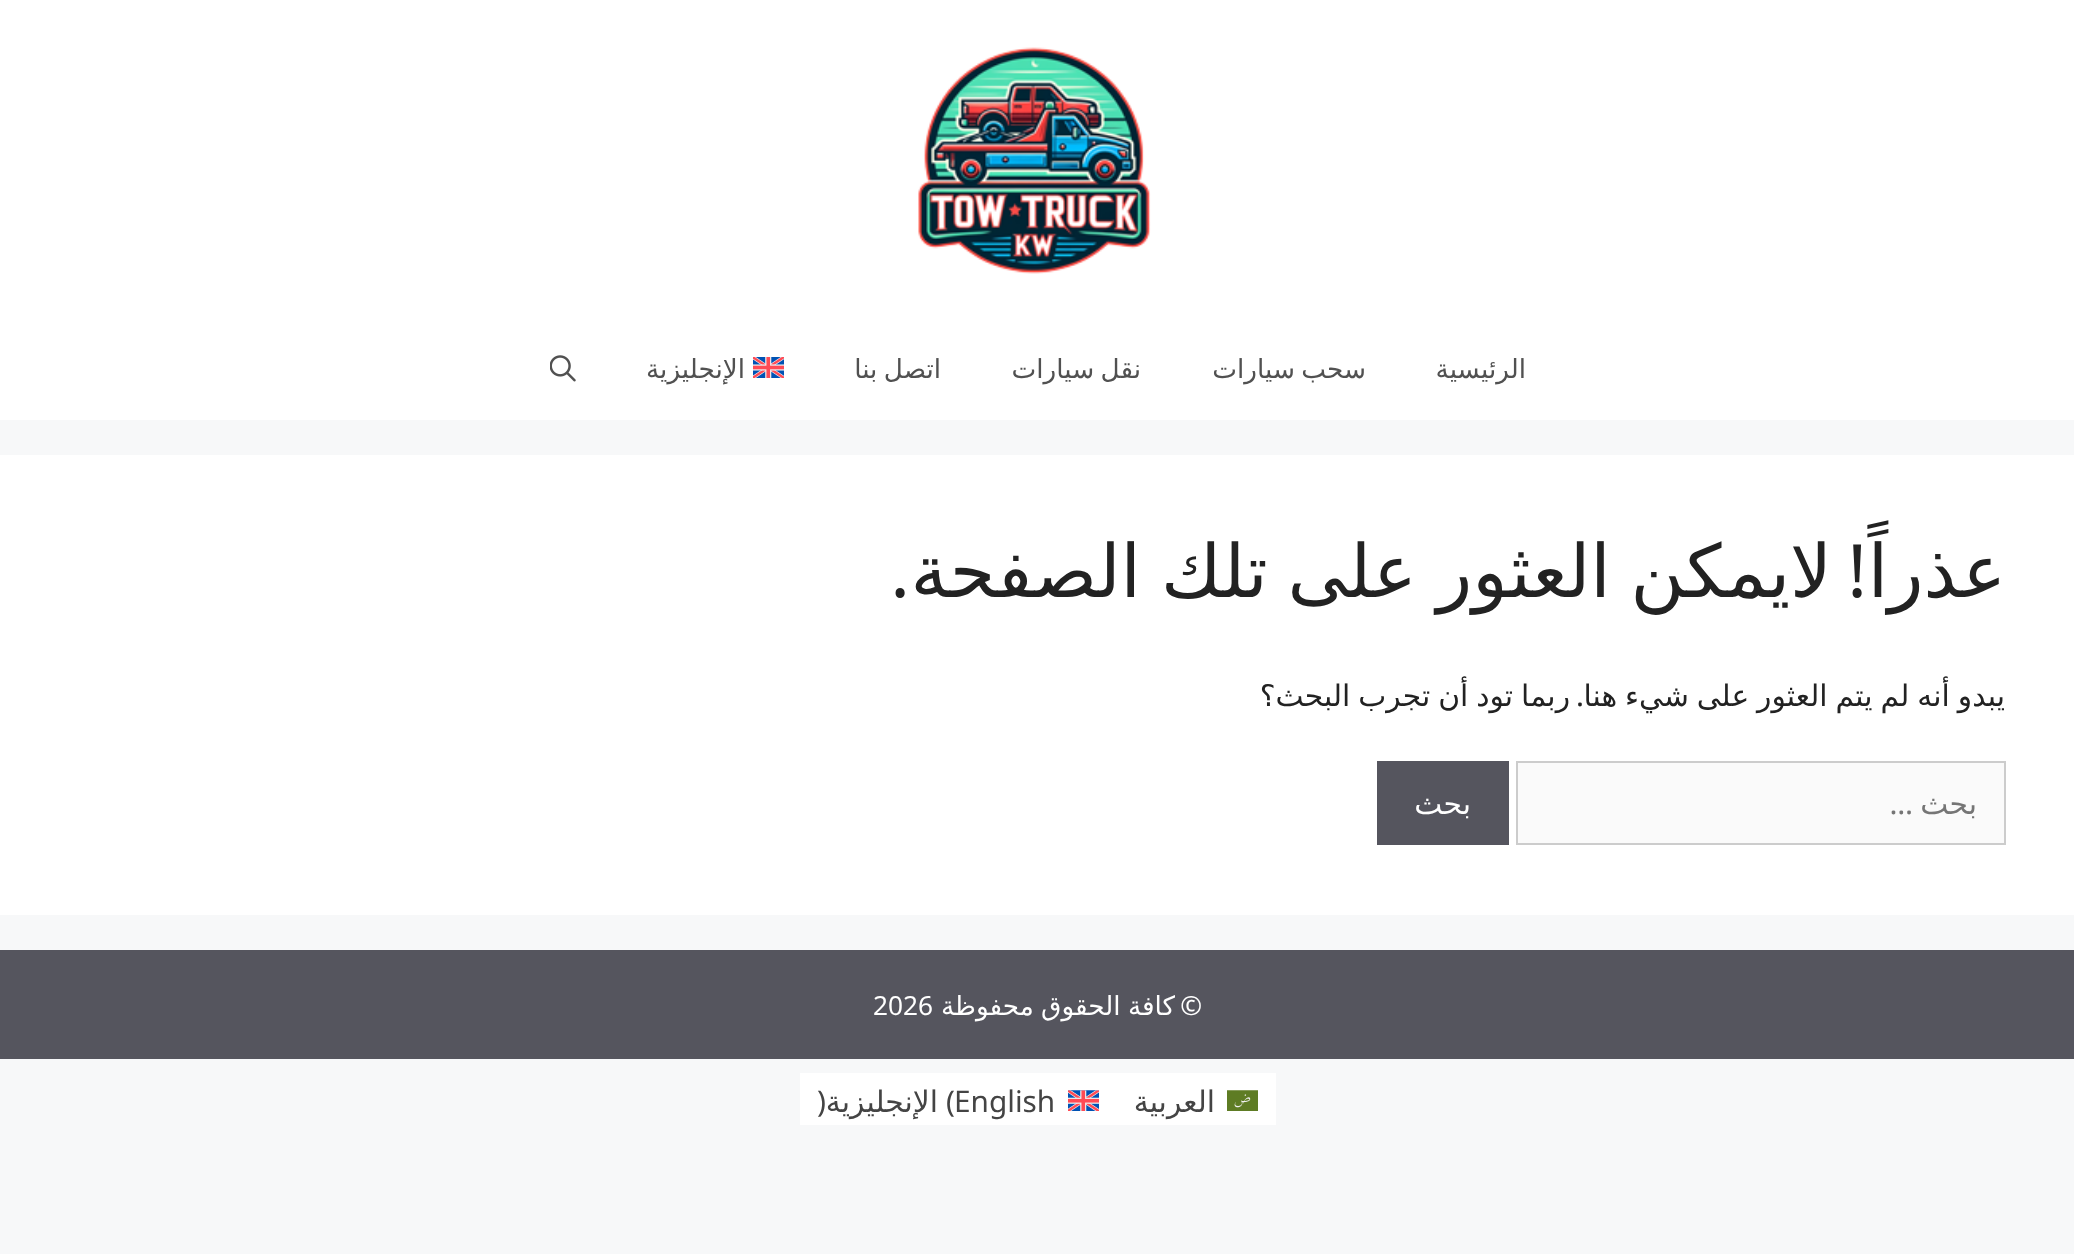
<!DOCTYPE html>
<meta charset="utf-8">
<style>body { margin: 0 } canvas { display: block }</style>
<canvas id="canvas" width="2074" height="1254"></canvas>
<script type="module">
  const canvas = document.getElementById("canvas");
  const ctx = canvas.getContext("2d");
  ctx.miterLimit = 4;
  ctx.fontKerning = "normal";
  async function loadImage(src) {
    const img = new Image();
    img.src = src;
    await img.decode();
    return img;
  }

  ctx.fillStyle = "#f7f8f9";
  ctx.fillRect(0, 0, 2074, 1254);
  ctx.fillStyle = "#ffffff";
  ctx.fillRect(0, 0, 2074, 420);
  ctx.drawImage(await loadImage("img1.png"), 918, 47, 233, 227);
  ctx.direction = "rtl";
  ctx.font = "26.25px DejaVu Sans";
  ctx.fillStyle = "#515151";
  ctx.fillText("الرئيسية", 1526, 378);
  ctx.wordSpacing = "-2px";
  ctx.fillText("سحب سيارات", 1366, 378);
  ctx.fillText("نقل سيارات", 1141, 378);
  ctx.fillText("اتصل بنا", 941, 378);
  ctx.drawImage(await loadImage("img2.png"), 753, 357, 31, 21);
  ctx.wordSpacing = "0px";
  ctx.fillText("الإنجليزية", 745, 378);
  ctx.drawImage(await loadImage("img3.png"), 550, 355, 26, 27);
  ctx.fillStyle = "#ffffff";
  ctx.fillRect(0, 455, 2074, 460);
  ctx.font = "73.5px DejaVu Sans";
  ctx.fillStyle = "#222222";
  ctx.fillText("عذراً", 2006, 597);
  ctx.font = "73.5px Noto Sans";
  ctx.fillText("!", 1867, 597);
  ctx.wordSpacing = "-3.5px";
  ctx.font = "73.5px DejaVu Sans";
  ctx.fillText("لايمكن العثور على تلك الصفحة", 1832, 597);
  ctx.wordSpacing = "0px";
  ctx.font = "73.5px Noto Sans";
  ctx.fillText(".", 910, 597);
  ctx.wordSpacing = "-1.5px";
  ctx.font = "29.75px DejaVu Sans";
  ctx.fillText("يبدو أنه لم يتم العثور على شيء هنا", 2005, 706);
  ctx.wordSpacing = "0px";
  ctx.font = "29.75px Noto Sans";
  ctx.fillText(".", 1584, 706);
  ctx.wordSpacing = "-1.5px";
  ctx.font = "29.75px DejaVu Sans";
  ctx.fillText("ربما تود أن تجرب البحث؟", 1570, 706);
  ctx.fillStyle = "#fafafa";
  ctx.beginPath();
  ctx.rect(1517, 762, 488, 82);
  ctx.fill();
  ctx.strokeStyle = "#cccccc";
  ctx.lineWidth = 2;
  ctx.stroke();
  ctx.wordSpacing = "0px";
  ctx.fillStyle = "#757575";
  ctx.fillText("بحث", 1977, 814);
  ctx.font = "29.75px Noto Sans";
  ctx.fillText("…", 1913, 814);
  ctx.fillStyle = "#55555e";
  ctx.fillRect(1377, 761, 132, 84);
  ctx.font = "29.75px DejaVu Sans";
  ctx.fillStyle = "#ffffff";
  ctx.fillText("بحث", 1471, 814);
  ctx.fillStyle = "#55555e";
  ctx.fillRect(0, 950, 2074, 109);
  ctx.font = "26.25px Noto Sans";
  ctx.fillStyle = "#ffffff";
  ctx.fillText("©", 1202, 1015);
  ctx.wordSpacing = "-1px";
  ctx.font = "26.25px DejaVu Sans";
  ctx.fillText("كافة الحقوق محفوظة", 1175, 1015);
  ctx.wordSpacing = "0px";
  ctx.direction = "ltr";
  ctx.font = "26.25px Noto Sans";
  ctx.fillText("2026", 873, 1015);
  ctx.fillRect(800, 1073, 476, 52);
  ctx.drawImage(await loadImage("img4.png"), 1227, 1090, 31, 21);
  ctx.direction = "rtl";
  ctx.font = "29.75px DejaVu Sans";
  ctx.fillStyle = "#444444";
  ctx.fillText("العربية", 1215, 1112);
  ctx.drawImage(await loadImage("img5.png"), 1068, 1090, 31, 21);
  ctx.direction = "ltr";
  ctx.font = "29.75px Noto Sans";
  ctx.fillText("English", 954, 1112);
  ctx.fillText("(", 946, 1112);
  ctx.direction = "rtl";
  ctx.font = "29.75px DejaVu Sans";
  ctx.fillText("الإنجليزية", 938, 1112);
  ctx.direction = "ltr";
  ctx.font = "29.75px Noto Sans";
  ctx.fillText(")", 817, 1112);
</script>
